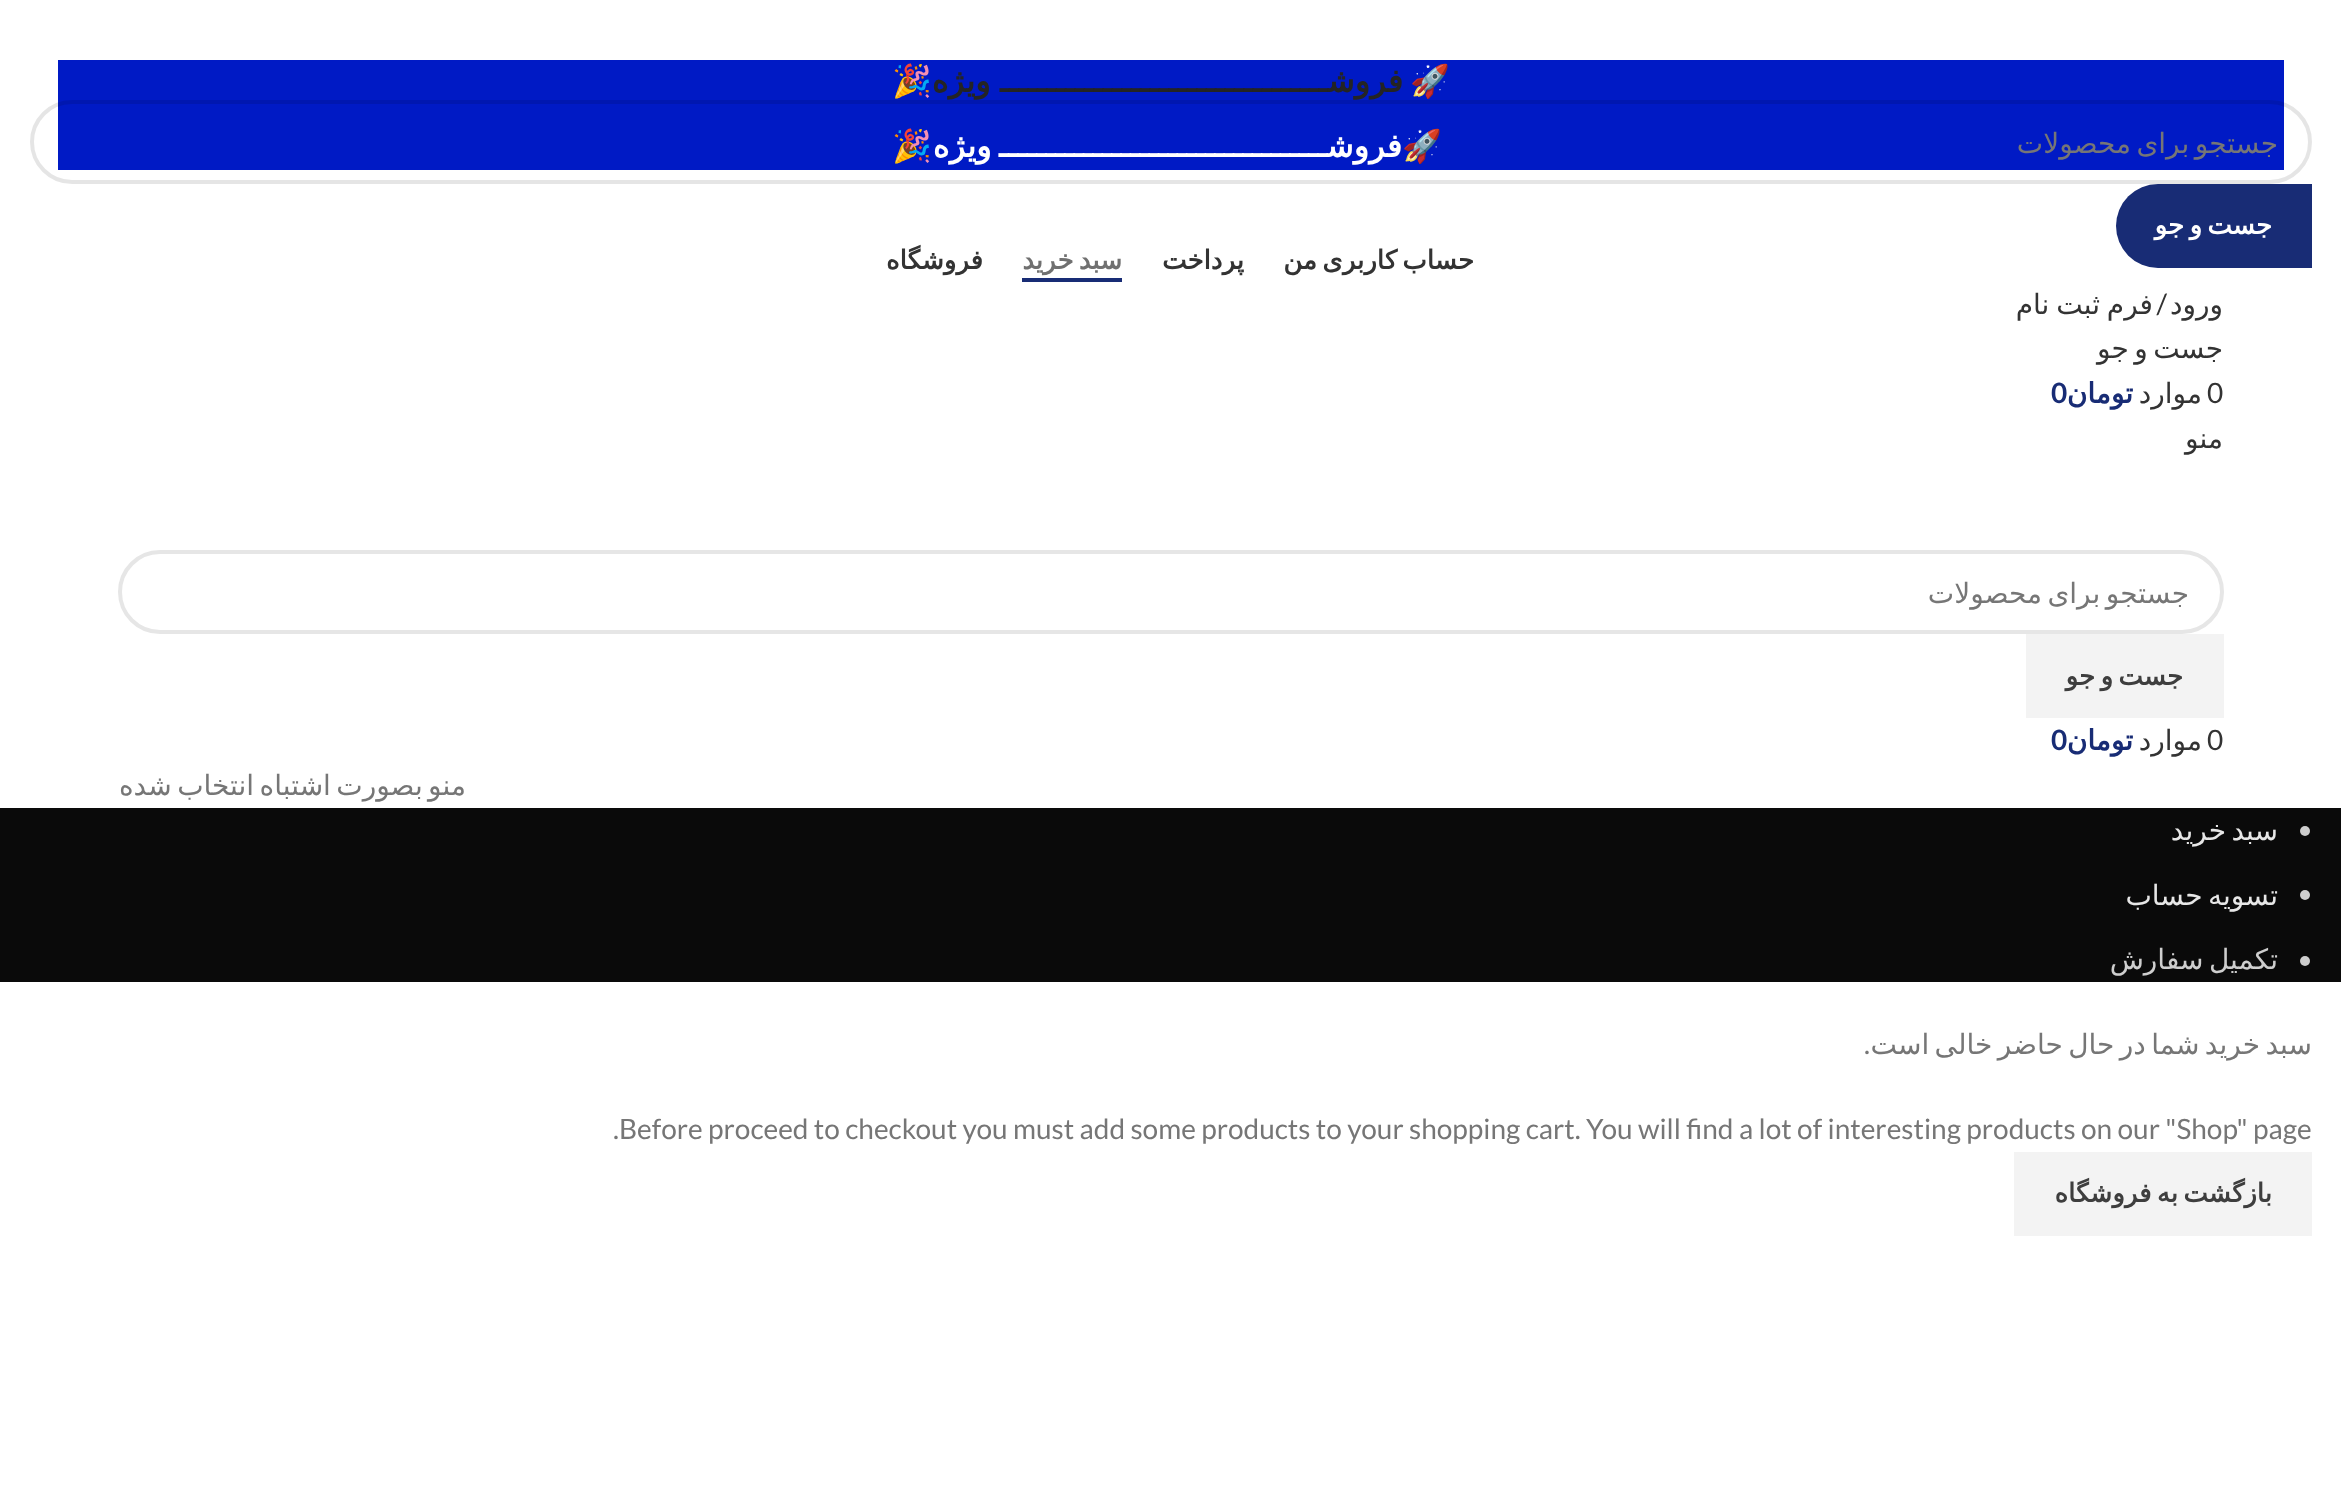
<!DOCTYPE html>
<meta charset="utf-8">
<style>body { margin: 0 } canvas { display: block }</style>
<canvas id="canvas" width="2341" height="1493"></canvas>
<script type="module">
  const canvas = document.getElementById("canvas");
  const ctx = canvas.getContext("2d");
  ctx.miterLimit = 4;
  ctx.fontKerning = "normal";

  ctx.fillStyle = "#ffffff";
  ctx.fillRect(0, 0, 2341, 1493);
  ctx.fillStyle = "#001ac5";
  ctx.fillRect(58, 60, 2226, 110);
  ctx.direction = "rtl";
  ctx.font = "bold 32px Noto Color Emoji";
  ctx.fillStyle = "#242424";
  ctx.fillText("🚀", 1450, 92);
  ctx.wordSpacing = "-1px";
  ctx.font = "bold 32px DejaVu Sans";
  ctx.fillText("فروشـــــــــــــــــــــــــــــــــــ ویژه", 1403, 92);
  ctx.wordSpacing = "0px";
  ctx.font = "bold 32px Noto Color Emoji";
  ctx.fillText("🎉", 932, 92);
  ctx.direction = "ltr";
  ctx.fillText("🚀", 1402, 157);
  ctx.wordSpacing = "-3px";
  ctx.direction = "rtl";
  ctx.font = "bold 32px DejaVu Sans";
  ctx.fillStyle = "#ffffff";
  ctx.fillText("فروشـــــــــــــــــــــــــــــــــــ ویژه", 1402, 157);
  ctx.wordSpacing = "0px";
  ctx.direction = "ltr";
  ctx.font = "bold 32px Noto Color Emoji";
  ctx.fillStyle = "#242424";
  ctx.fillText("🎉", 892, 157);
  ctx.wordSpacing = "-3px";
  ctx.direction = "rtl";
  ctx.font = "bold 26px DejaVu Sans";
  ctx.fillStyle = "#333333";
  ctx.fillText("حساب کاربری من", 1474, 269);
  ctx.wordSpacing = "0px";
  ctx.fillText("پرداخت", 1244, 269);
  ctx.wordSpacing = "-3px";
  ctx.fillStyle = "#707070";
  ctx.fillText("سبد خرید", 1122, 269);
  ctx.fillStyle = "#182c75";
  ctx.fillRect(1022, 278, 100, 4);
  ctx.wordSpacing = "0px";
  ctx.fillStyle = "#333333";
  ctx.fillText("فروشگاه", 983, 269);
  ctx.font = "28px DejaVu Sans";
  ctx.fillText("ورود", 2223, 314);
  ctx.font = "28px Lato";
  ctx.fillText("/", 2167, 314);
  ctx.wordSpacing = "-2px";
  ctx.font = "28px DejaVu Sans";
  ctx.fillText("فرم ثبت نام", 2153, 314);
  ctx.wordSpacing = "-3.5px";
  ctx.fillText("جست و جو", 2223, 358);
  ctx.wordSpacing = "0px";
  ctx.direction = "ltr";
  ctx.font = "28px Lato";
  ctx.fillText("0", 2207, 403);
  ctx.direction = "rtl";
  ctx.font = "28px DejaVu Sans";
  ctx.fillText("موارد", 2202, 403);
  ctx.font = "bold 28px DejaVu Sans";
  ctx.fillStyle = "#182c75";
  ctx.fillText("تومان", 2133, 403);
  ctx.direction = "ltr";
  ctx.font = "bold 28px Lato";
  ctx.fillText("0", 2051, 403);
  ctx.direction = "rtl";
  ctx.font = "28px DejaVu Sans";
  ctx.fillStyle = "#333333";
  ctx.fillText("منو", 2223, 448);
  ctx.beginPath();
  ctx.roundRect(120, 552, 2102, 80, 40);
  ctx.strokeStyle = "#e6e6e6";
  ctx.lineWidth = 4;
  ctx.stroke();
  ctx.save();
  ctx.beginPath();
  ctx.rect(152, 576, 2038, 34);
  ctx.clip();
  ctx.wordSpacing = "-3.5px";
  ctx.fillStyle = "#767676";
  ctx.fillText("جستجو برای محصولات", 2189, 603);
  ctx.restore();
  ctx.fillStyle = "#f3f3f3";
  ctx.fillRect(2026, 634, 198, 84);
  ctx.wordSpacing = "-3px";
  ctx.font = "bold 26px DejaVu Sans";
  ctx.fillStyle = "#3e3e3e";
  ctx.fillText("جست و جو", 2183, 685);
  ctx.wordSpacing = "0px";
  ctx.direction = "ltr";
  ctx.font = "28px Lato";
  ctx.fillStyle = "#333333";
  ctx.fillText("0", 2207, 750);
  ctx.direction = "rtl";
  ctx.font = "28px DejaVu Sans";
  ctx.fillText("موارد", 2202, 750);
  ctx.font = "bold 28px DejaVu Sans";
  ctx.fillStyle = "#182c75";
  ctx.fillText("تومان", 2133, 750);
  ctx.direction = "ltr";
  ctx.font = "bold 28px Lato";
  ctx.fillText("0", 2051, 750);
  ctx.wordSpacing = "-3.5px";
  ctx.direction = "rtl";
  ctx.font = "28px DejaVu Sans";
  ctx.fillStyle = "#767676";
  ctx.fillText("منو بصورت اشتباه انتخاب شده", 466, 795);
  ctx.fillStyle = "#0a0a0a";
  ctx.fillRect(0, 808, 2341, 174);
  ctx.fillStyle = "#cecece";
  ctx.beginPath();
  ctx.arc(2305, 831, 5, 0, Math.PI * 2);
  ctx.fill();
  ctx.fillStyle = "#e7e7e7";
  ctx.fillText("سبد خرید", 2278, 840);
  ctx.fillStyle = "#cecece";
  ctx.beginPath();
  ctx.arc(2305, 895, 5, 0, Math.PI * 2);
  ctx.fill();
  ctx.fillStyle = "#e7e7e7";
  ctx.fillText("تسویه حساب", 2278, 905);
  ctx.fillStyle = "#cecece";
  ctx.beginPath();
  ctx.arc(2305, 961, 5, 0, Math.PI * 2);
  ctx.fill();
  ctx.fillText("تکمیل سفارش", 2278, 969);
  ctx.fillStyle = "#767676";
  ctx.fillText("سبد خرید شما در حال حاضر خالی است", 2312, 1054);
  ctx.wordSpacing = "0px";
  ctx.font = "28px Lato";
  ctx.fillText(".", 1870, 1054);
  ctx.direction = "ltr";
  ctx.fillText(".Before proceed to checkout you must add some products to your shopping cart. You will find a lot of interesting products on our \"Shop\" page", 613, 1139);
  ctx.fillStyle = "#f3f3f3";
  ctx.fillRect(2014, 1152, 298, 84);
  ctx.wordSpacing = "-3px";
  ctx.direction = "rtl";
  ctx.font = "bold 26px DejaVu Sans";
  ctx.fillStyle = "#3e3e3e";
  ctx.fillText("بازگشت به فروشگاه", 2272, 1202);
  ctx.beginPath();
  ctx.roundRect(32, 102, 2278, 80, 40);
  ctx.strokeStyle = "rgba(0, 0, 0, 0.1)";
  ctx.stroke();
  ctx.save();
  ctx.beginPath();
  ctx.rect(64, 126, 2214, 34);
  ctx.clip();
  ctx.wordSpacing = "-3.5px";
  ctx.font = "28px DejaVu Sans";
  ctx.fillStyle = "#767676";
  ctx.fillText("جستجو برای محصولات", 2278, 153);
  ctx.restore();
  ctx.fillStyle = "#182c75";
  ctx.beginPath();
  ctx.roundRect(2116, 184, 196, 84, [42, 0, 0, 42]);
  ctx.fill();
  ctx.fillStyle = "#ffffff";
  ctx.fillText("جست و جو", 2272, 234);
</script>
